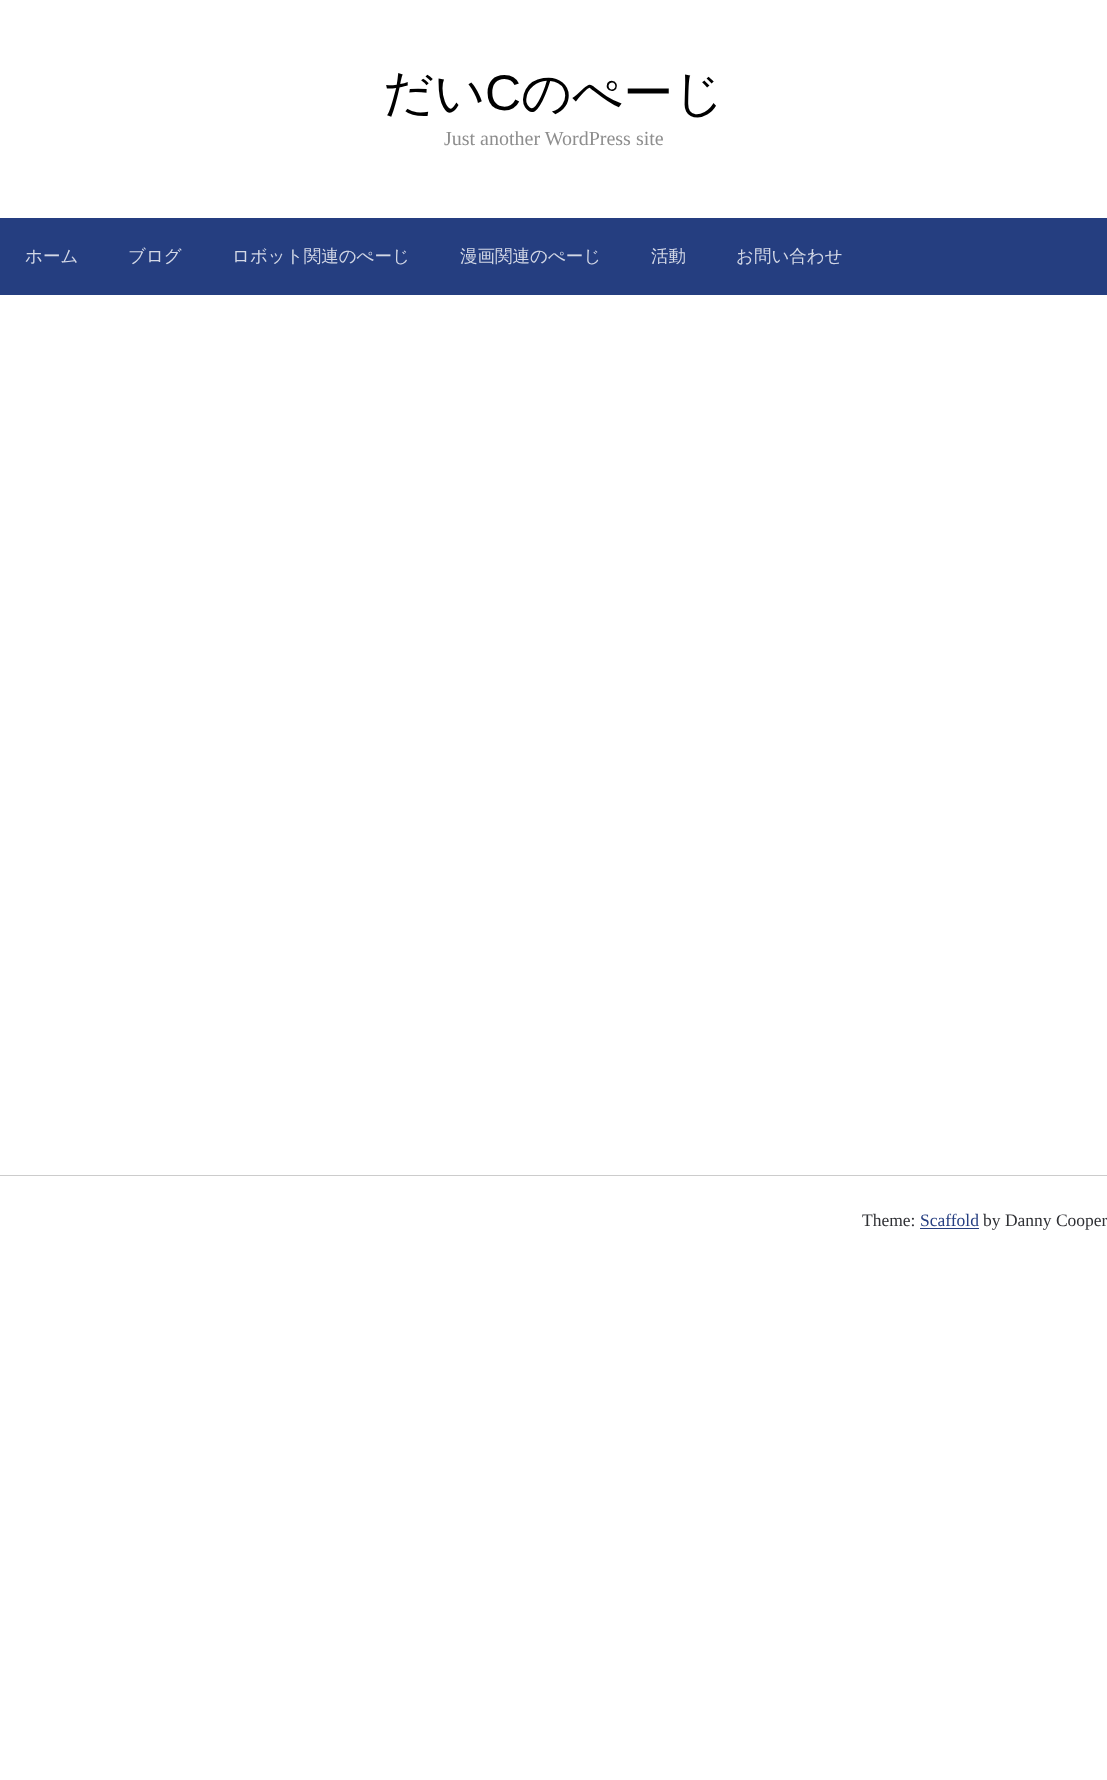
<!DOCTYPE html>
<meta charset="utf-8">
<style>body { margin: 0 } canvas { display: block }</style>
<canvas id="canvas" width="1107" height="1780"></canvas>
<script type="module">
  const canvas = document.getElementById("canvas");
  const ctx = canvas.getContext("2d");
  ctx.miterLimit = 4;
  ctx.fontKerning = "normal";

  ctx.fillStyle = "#ffffff";
  ctx.fillRect(0, 0, 1107, 1780);
  ctx.font = "500 50px WenQuanYi Zen Hei";
  ctx.fillStyle = "#000000";
  ctx.fillText("だい", 383, 110);
  ctx.font = "50px Liberation Sans";
  ctx.fillText("C", 485, 110);
  ctx.font = "500 50px WenQuanYi Zen Hei";
  ctx.fillText("のぺーじ", 521, 110);
  ctx.font = "20px Liberation Serif";
  ctx.fillStyle = "#8e8e8e";
  ctx.fillText("Just another WordPress site", 444, 145);
  ctx.fillStyle = "#253e80";
  ctx.fillRect(0, 218, 1107, 77);
  ctx.font = "500 17.5px WenQuanYi Zen Hei";
  ctx.fillStyle = "#d3d8e6";
  ctx.fillText("ホーム", 25, 262);
  ctx.fillText("ブログ", 128, 262);
  ctx.fillText("ロボット関連のぺーじ", 232, 262);
  ctx.fillText("漫画関連のぺーじ", 460, 262);
  ctx.fillText("活動", 651, 262);
  ctx.fillText("お問い合わせ", 736, 262);
  ctx.fillStyle = "#cccccc";
  ctx.fillRect(0, 1175, 1107, 1);
  ctx.font = "17.5px Liberation Serif";
  ctx.fillStyle = "#303135";
  ctx.fillText("Theme:", 862, 1226);
  ctx.fillStyle = "#253e80";
  ctx.fillText("Scaffold", 920, 1226);
  ctx.fillRect(920, 1228, 59, 1);
  ctx.fillStyle = "#303135";
  ctx.fillText("by Danny Cooper", 983, 1226);
</script>
